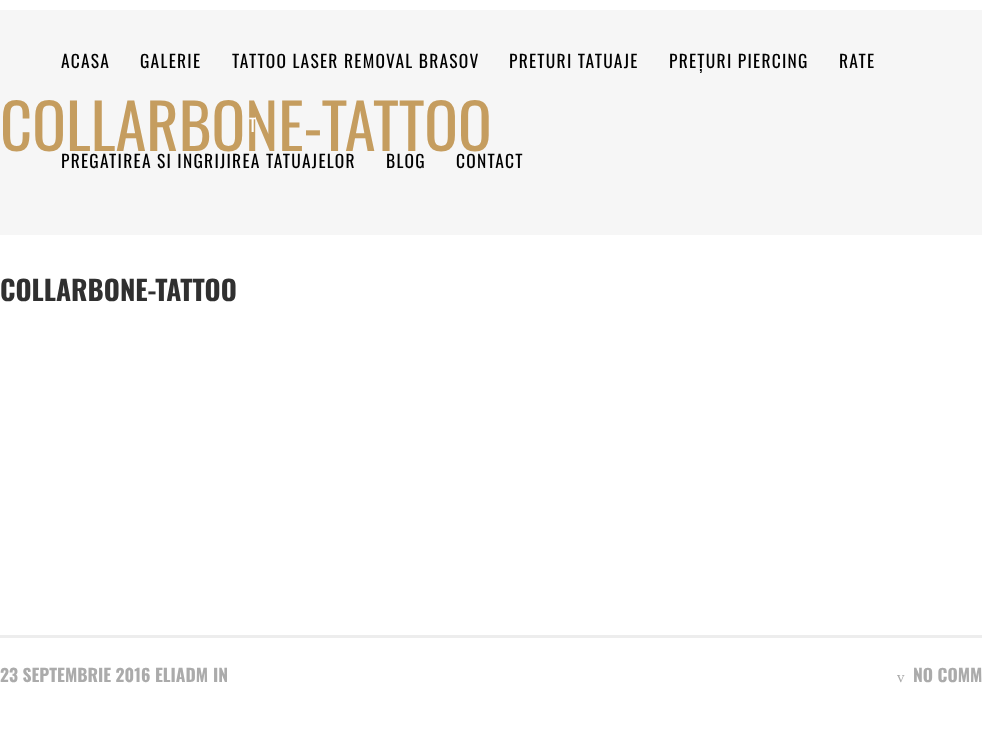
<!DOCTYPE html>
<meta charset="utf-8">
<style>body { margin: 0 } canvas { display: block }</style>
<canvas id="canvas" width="982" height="747"></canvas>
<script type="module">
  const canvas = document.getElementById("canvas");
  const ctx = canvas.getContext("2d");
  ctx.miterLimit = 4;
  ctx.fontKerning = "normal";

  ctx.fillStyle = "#ffffff";
  ctx.fillRect(0, 0, 982, 747);
  ctx.fillStyle = "#f6f6f6";
  ctx.fillRect(0, 10, 982, 225);
  ctx.letterSpacing = "1.25px";
  ctx.font = "17.5px Oswald";
  ctx.fillStyle = "#000000";
  ctx.fillText("ACASA", 61, 68);
  ctx.fillText("GALERIE", 140, 68);
  ctx.fillText("TATTOO LASER REMOVAL BRASOV", 232, 68);
  ctx.fillText("PRETURI TATUAJE", 509, 68);
  ctx.fillText("PREȚURI PIERCING", 669, 68);
  ctx.fillText("RATE", 839, 68);
  ctx.fillText("PREGATIREA SI INGRIJIREA TATUAJELOR", 61, 168);
  ctx.fillText("BLOG", 386, 168);
  ctx.fillText("CONTACT", 456, 168);
  ctx.letterSpacing = "0px";
  ctx.font = "62.5px Oswald";
  ctx.fillStyle = "#c59d5f";
  ctx.fillText("COLLARBONE-TATTOO", 0, 151);
  ctx.letterSpacing = "1.25px";
  ctx.font = "17.5px Oswald";
  ctx.fillStyle = "#ffffff";
  ctx.fillText("T", 249, 132);
  ctx.letterSpacing = "0px";
  ctx.font = "bold 27.5px Oswald";
  ctx.fillStyle = "#303030";
  ctx.fillText("COLLARBONE-TATTOO", 0, 301);
  ctx.fillStyle = "#ededed";
  ctx.fillRect(0, 635, 982, 3);
  ctx.font = "bold 17.5px Oswald";
  ctx.fillStyle = "#ababab";
  ctx.fillText("23 SEPTEMBRIE 2016", 0, 682);
  ctx.fillText("ELIADM", 155, 682);
  ctx.fillText("IN", 213, 682);
  ctx.font = "15px Liberation Serif";
  ctx.fillText("v", 897, 682);
  ctx.font = "bold 17.5px Oswald";
  ctx.fillText("NO COMM", 913, 682);
</script>
